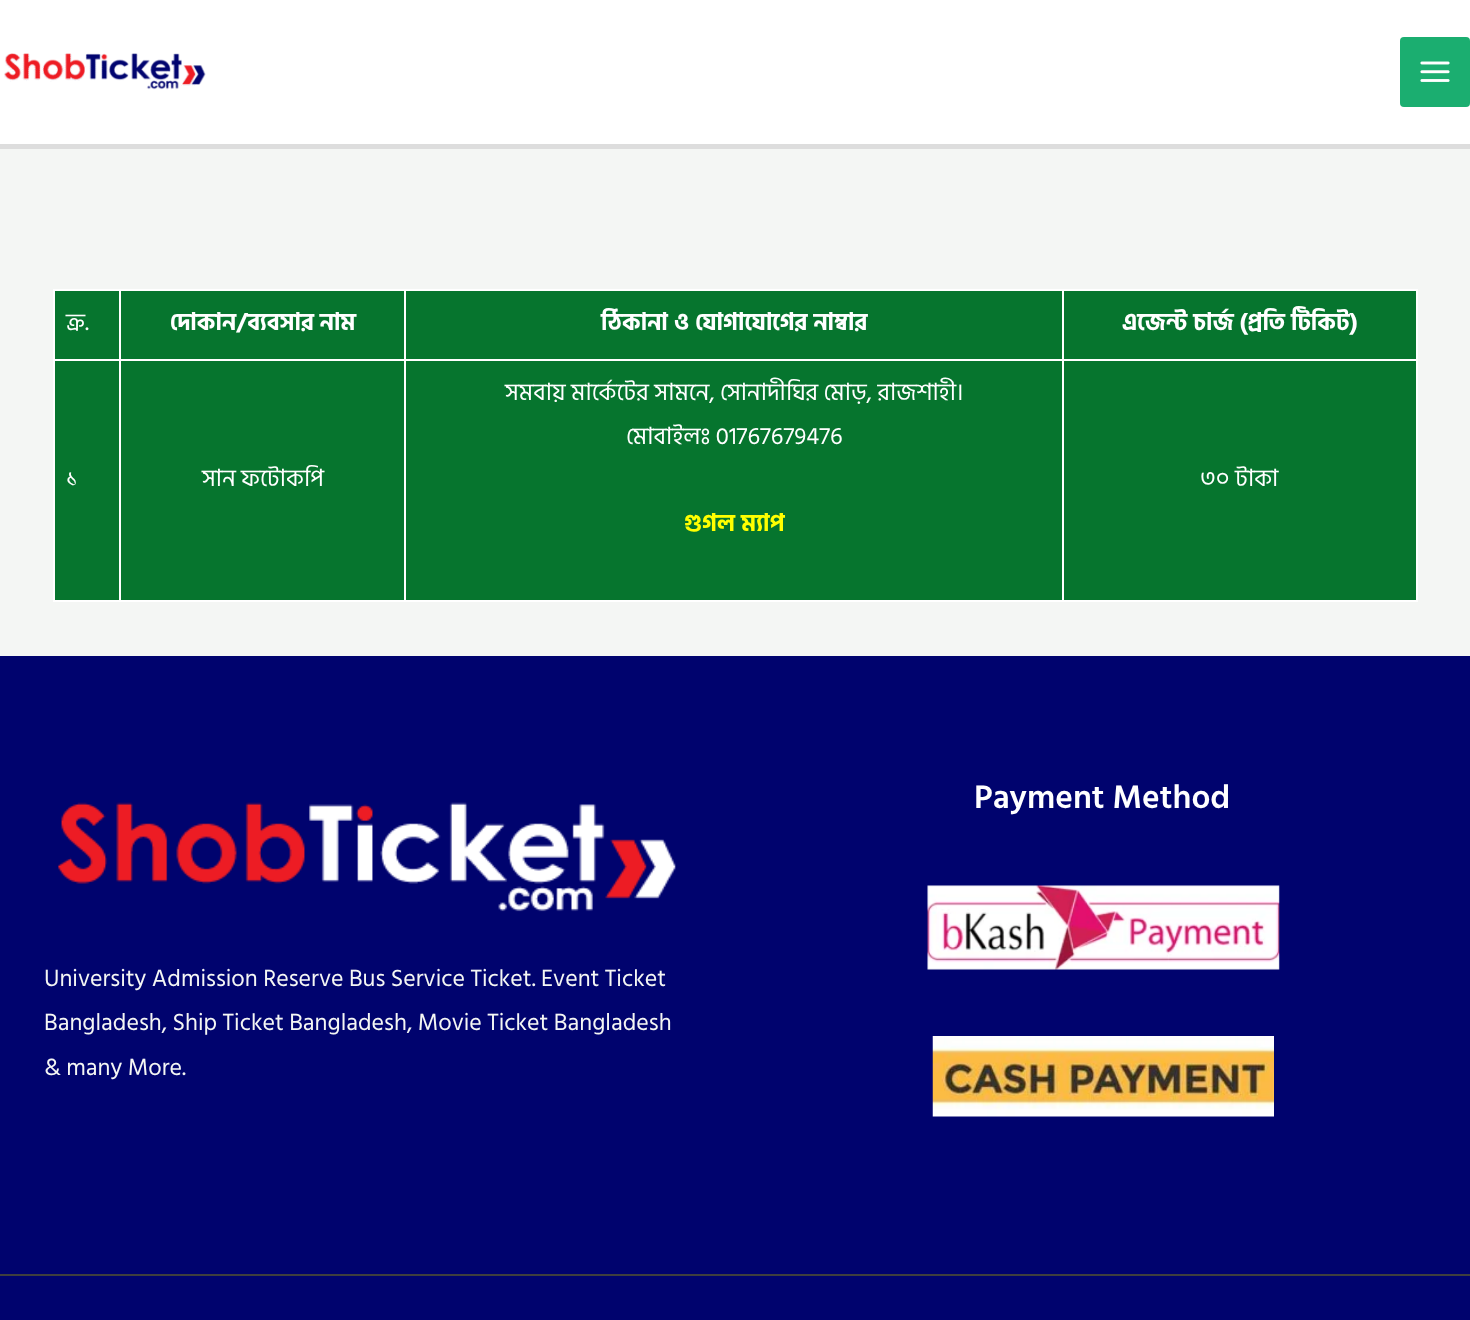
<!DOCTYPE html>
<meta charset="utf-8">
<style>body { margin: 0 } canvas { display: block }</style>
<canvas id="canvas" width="1470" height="1320"></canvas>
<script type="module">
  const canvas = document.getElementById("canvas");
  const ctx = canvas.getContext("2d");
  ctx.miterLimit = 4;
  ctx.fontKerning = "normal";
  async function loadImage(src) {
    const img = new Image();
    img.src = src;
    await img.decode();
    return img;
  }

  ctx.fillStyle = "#f4f6f4";
  ctx.fillRect(0, 0, 1470, 1320);
  ctx.fillStyle = "#ffffff";
  ctx.fillRect(0, 0, 1470, 144);
  ctx.fillStyle = "#dddddd";
  ctx.fillRect(0, 144, 1470, 5);
  ctx.drawImage(await loadImage("img1.png"), 4, 53, 202, 37);
  ctx.fillStyle = "#1bae70";
  ctx.beginPath();
  ctx.roundRect(1400, 37, 70, 70, 4);
  ctx.fill();
  ctx.drawImage(await loadImage("img2.png"), 1420, 61, 30, 21);
  ctx.fillStyle = "#06752e";
  ctx.fillRect(55, 291, 1361, 309);
  ctx.fillStyle = "#ffffff";
  ctx.fillRect(1062, 289, 356, 2);
  ctx.fillRect(1062, 359, 356, 2);
  ctx.fillRect(1416, 359, 2, 243);
  ctx.fillRect(1062, 600, 356, 2);
  ctx.fillRect(1062, 359, 2, 243);
  ctx.fillRect(404, 359, 660, 2);
  ctx.fillRect(1062, 289, 2, 72);
  ctx.fillRect(404, 289, 660, 2);
  ctx.fillRect(404, 600, 660, 2);
  ctx.fillRect(404, 359, 2, 243);
  ctx.fillRect(119, 359, 287, 2);
  ctx.fillRect(404, 289, 2, 72);
  ctx.fillRect(119, 289, 287, 2);
  ctx.fillRect(119, 600, 287, 2);
  ctx.fillRect(119, 359, 2, 243);
  ctx.fillRect(53, 359, 68, 2);
  ctx.fillRect(119, 289, 2, 72);
  ctx.fillRect(53, 289, 68, 2);
  ctx.fillRect(53, 600, 68, 2);
  ctx.fillRect(53, 359, 2, 243);
  ctx.fillRect(53, 289, 2, 72);
  ctx.font = "23.95px Hind Siliguri";
  ctx.fillText("ক্র.", 66, 330);
  ctx.font = "bold 23.95px Hind Siliguri";
  ctx.fillText("দোকান/ব্যবসার নাম", 170, 330);
  ctx.fillText("ঠিকানা ও যোগাযোগের নাম্বার", 601, 330);
  ctx.fillRect(1416, 289, 2, 72);
  ctx.fillText("এজেন্ট চার্জ (প্রতি টিকিট)", 1122, 330);
  ctx.font = "23.95px Hind Siliguri";
  ctx.fillText("১", 66, 486);
  ctx.fillText("সান ফটোকপি", 202, 486);
  ctx.fillText("সমবায় মার্কেটের সামনে, সোনাদীঘির মোড়, রাজশাহী।", 505, 400);
  ctx.fillText("মোবাইলঃ 01767679476", 626, 444);
  ctx.font = "bold 23.95px Hind Siliguri";
  ctx.fillStyle = "#ffff00";
  ctx.fillText("গুগল ম্যাপ", 684, 531);
  ctx.font = "23.95px Hind Siliguri";
  ctx.fillStyle = "#ffffff";
  ctx.fillText("৩০ টাকা", 1200, 486);
  ctx.fillStyle = "#00036e";
  ctx.fillRect(0, 656, 1470, 664);
  ctx.font = "600 33.5px Hind Siliguri";
  ctx.fillStyle = "#ffffff";
  ctx.fillText("Payment Method", 974, 808);
  ctx.drawImage(await loadImage("img3.png"), 927, 885, 353, 85);
  ctx.drawImage(await loadImage("img4.png"), 932, 1036, 342, 81);
  ctx.drawImage(await loadImage("img5.png"), 58, 802, 618, 110);
  ctx.font = "23.95px Hind Siliguri";
  ctx.fillStyle = "#f4f6f4";
  ctx.fillText("University Admission Reserve Bus Service Ticket. Event Ticket", 44, 986);
  ctx.fillText("Bangladesh, Ship Ticket Bangladesh, Movie Ticket Bangladesh", 44, 1030);
  ctx.fillText("& many More.", 44, 1075);
  ctx.fillStyle = "#3f3f3f";
  ctx.fillRect(0, 1274, 1470, 2);
</script>
